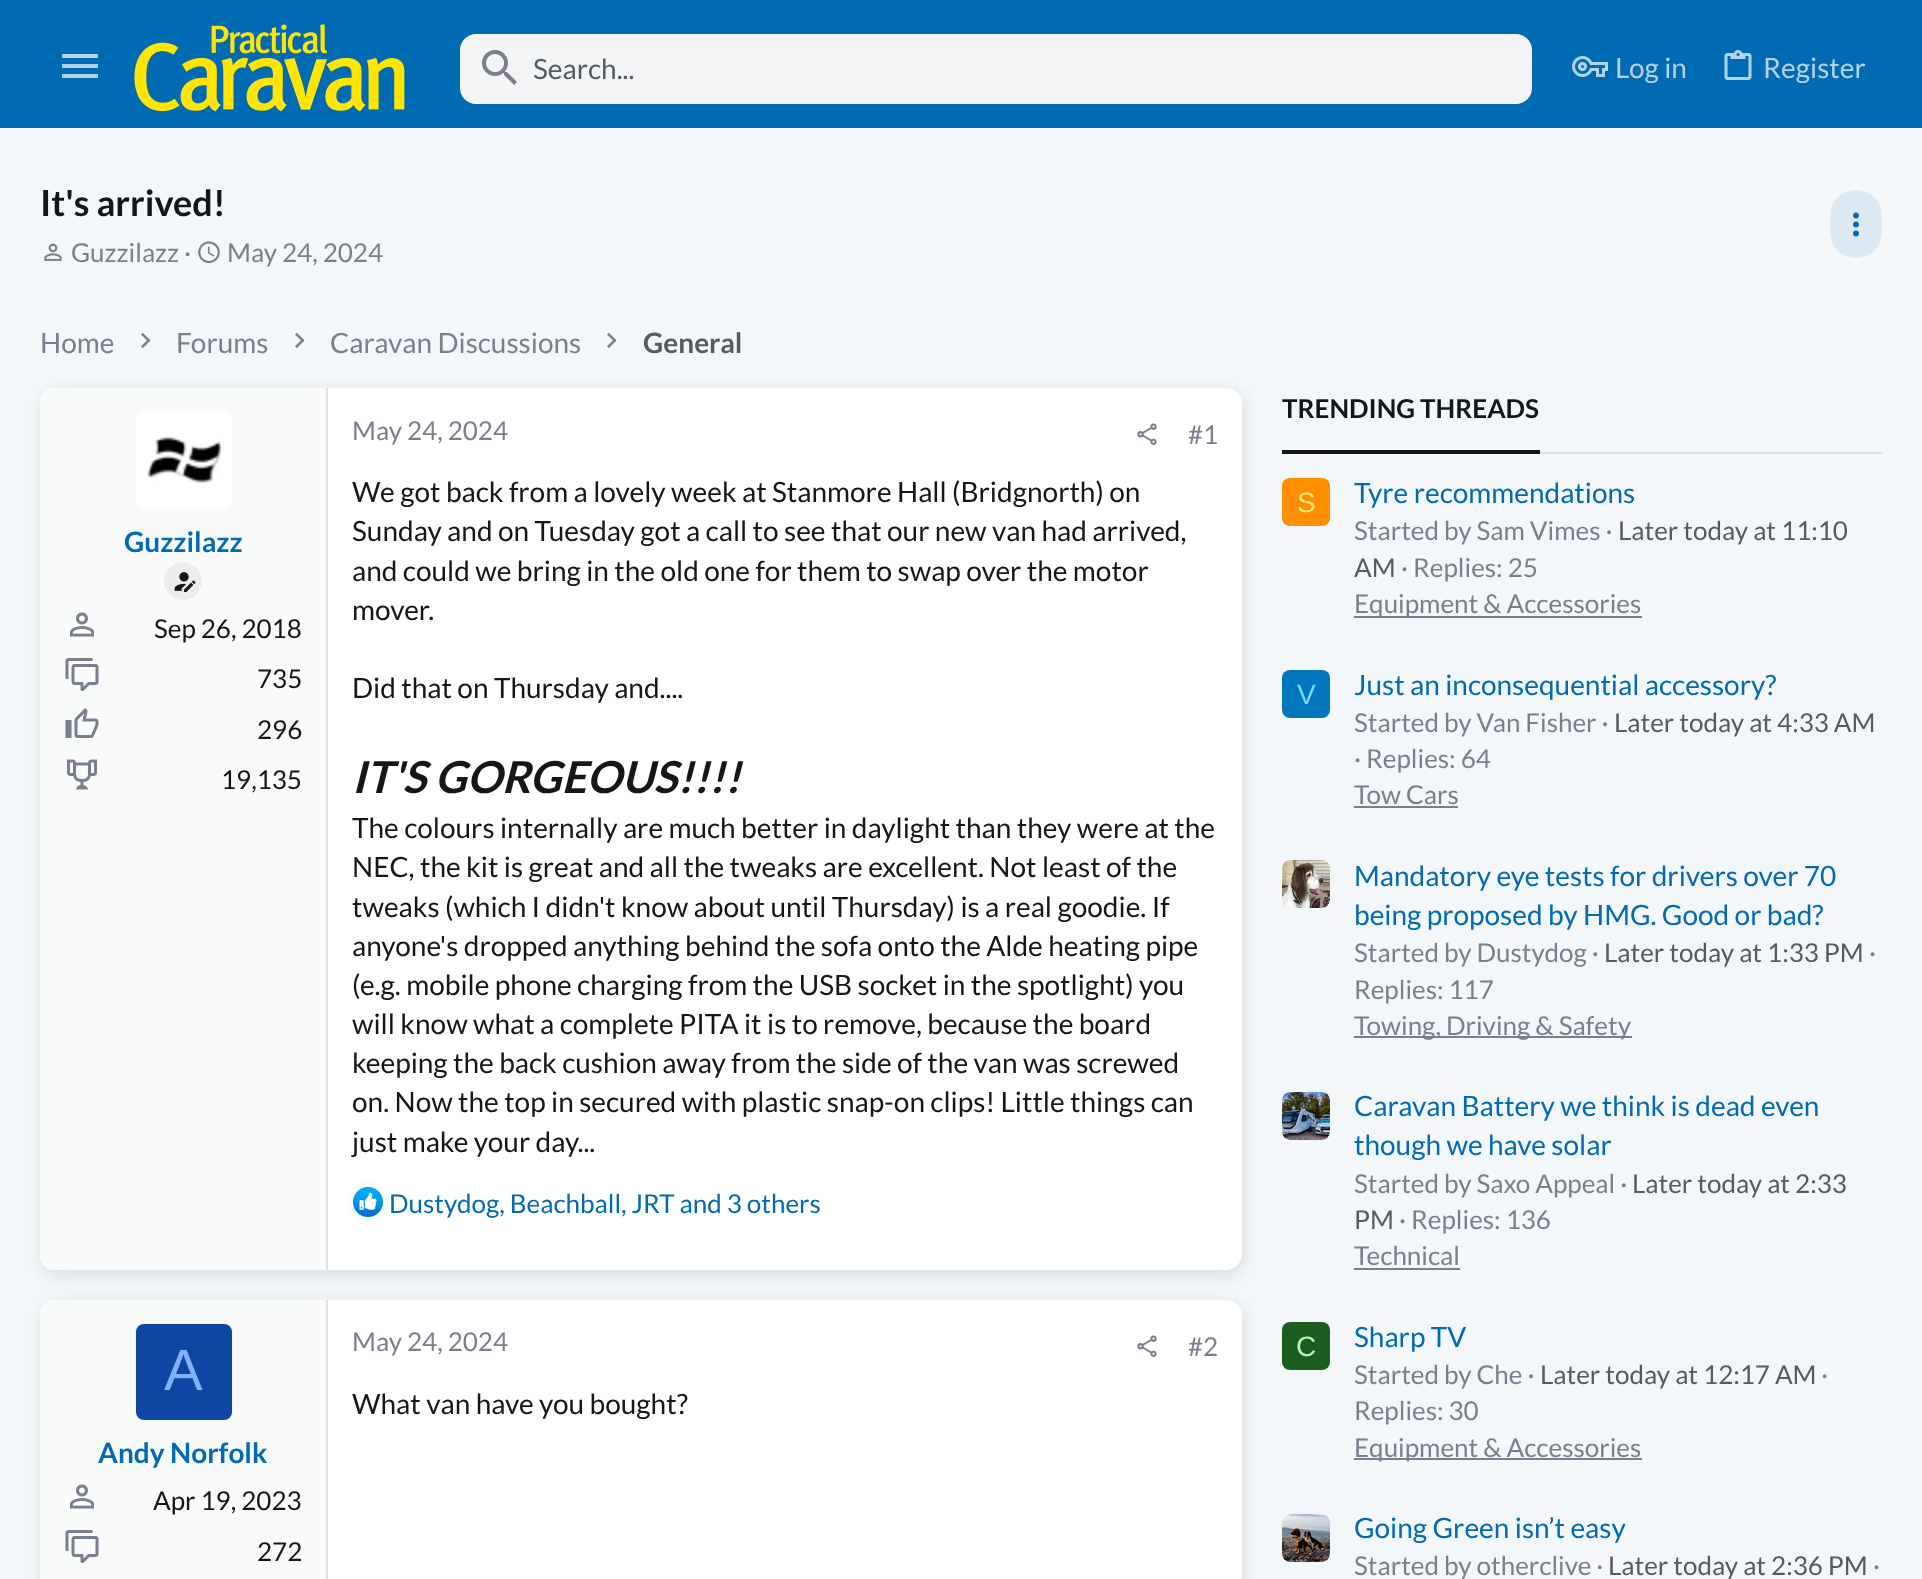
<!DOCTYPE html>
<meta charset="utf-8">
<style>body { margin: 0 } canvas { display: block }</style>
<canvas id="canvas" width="1922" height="1579"></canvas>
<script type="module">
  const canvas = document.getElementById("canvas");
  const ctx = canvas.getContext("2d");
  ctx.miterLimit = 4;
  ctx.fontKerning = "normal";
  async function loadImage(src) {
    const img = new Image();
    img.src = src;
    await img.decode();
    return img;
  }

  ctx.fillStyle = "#f4f7f9";
  ctx.fillRect(0, 0, 1922, 1579);
  ctx.fillStyle = "#006ab2";
  ctx.fillRect(0, 0, 1922, 128);
  ctx.fillStyle = "#b3d2e8";
  ctx.beginPath();
  ctx.moveTo(62, 54);
  ctx.lineTo(98, 54);
  ctx.lineTo(98, 58);
  ctx.lineTo(62, 58);
  ctx.closePath();
  ctx.moveTo(62, 64);
  ctx.lineTo(98, 64);
  ctx.lineTo(98, 68);
  ctx.lineTo(62, 68);
  ctx.closePath();
  ctx.moveTo(62, 74);
  ctx.lineTo(98, 74);
  ctx.lineTo(98, 78);
  ctx.lineTo(62, 78);
  ctx.closePath();
  ctx.fill();
  ctx.drawImage(await loadImage("img1.png"), 134, 24, 271, 88);
  ctx.fillStyle = "#f3f4f5";
  ctx.beginPath();
  ctx.roundRect(460, 34, 1072, 70, 16);
  ctx.fill();
  ctx.drawImage(await loadImage("img2.png"), 482, 50, 35, 35);
  ctx.font = "28px Lato";
  ctx.fillStyle = "#535b63";
  ctx.fillText("Search...", 533, 79);
  ctx.drawImage(await loadImage("img3.png"), 1572, 56, 36, 21);
  ctx.fillStyle = "#b3d2e8";
  ctx.fillText("Log in", 1615, 78);
  ctx.drawImage(await loadImage("img4.png"), 1724, 50, 28, 30);
  ctx.fillText("Register", 1763, 78);
  ctx.font = "bold 36px Lato";
  ctx.fillStyle = "#141618";
  ctx.fillText("It's arrived!", 40, 216);
  ctx.drawImage(await loadImage("img5.png"), 44, 243, 18, 18);
  ctx.font = "26px Lato";
  ctx.fillStyle = "#76818d";
  ctx.fillText("Guzzilazz ·", 71, 262);
  ctx.drawImage(await loadImage("img6.png"), 198, 241, 22, 23);
  ctx.fillText("May 24, 2024", 227, 262);
  ctx.fillStyle = "#dce9f2";
  ctx.beginPath();
  ctx.roundRect(1830, 190, 52, 68, 26);
  ctx.fill();
  ctx.drawImage(await loadImage("img7.png"), 1853, 212, 6, 25);
  ctx.font = "28px Lato";
  ctx.fillStyle = "#76818d";
  ctx.fillText("Home", 40, 353);
  ctx.drawImage(await loadImage("img8.png"), 141, 332, 10, 16);
  ctx.fillText("Forums", 176, 353);
  ctx.drawImage(await loadImage("img8.png"), 295, 332, 10, 16);
  ctx.fillText("Caravan Discussions", 330, 353);
  ctx.drawImage(await loadImage("img8.png"), 607, 332, 10, 16);
  ctx.font = "bold 28px Lato";
  ctx.fillStyle = "#535b63";
  ctx.fillText("General", 643, 353);
  ctx.fillStyle = "rgba(107, 119, 128, 0.08)";
  ctx.filter = "blur(8px)";
  ctx.beginPath();
  ctx.roundRect(44, 388, 1202, 882, 16);
  ctx.fill();
  ctx.filter = "none";
  ctx.fillStyle = "rgba(107, 119, 128, 0.12)";
  ctx.filter = "blur(8px)";
  ctx.beginPath();
  ctx.roundRect(40, 396, 1202, 882, 16);
  ctx.fill();
  ctx.filter = "none";
  ctx.fillStyle = "#ffffff";
  ctx.beginPath();
  ctx.roundRect(40, 388, 1202, 882, 16);
  ctx.fill();
  ctx.fillStyle = "#f9fafa";
  ctx.beginPath();
  ctx.roundRect(40, 388, 288, 882, [14, 0, 0, 14]);
  ctx.fill();
  ctx.fillStyle = "#e0e0e0";
  ctx.fillRect(326, 388, 2, 882);
  ctx.fillStyle = "#ffffff";
  ctx.beginPath();
  ctx.roundRect(136, 412, 96, 96, 8);
  ctx.fill();
  ctx.drawImage(await loadImage("img9.png"), 147, 437, 76, 47);
  ctx.fillStyle = "#006ab2";
  ctx.fillText("Guzzilazz", 124, 552);
  ctx.fillStyle = "#ebecee";
  ctx.beginPath();
  ctx.arc(183, 581, 19, 0, Math.PI * 2);
  ctx.fill();
  ctx.drawImage(await loadImage("img10.png"), 174, 572, 22, 20);
  ctx.drawImage(await loadImage("img11.png"), 70, 612, 24, 25);
  ctx.font = "26px Lato";
  ctx.fillStyle = "#141618";
  ctx.fillText("Sep 26, 2018", 154, 638);
  ctx.drawImage(await loadImage("img12.png"), 65, 658, 34, 33);
  ctx.fillText("735", 257, 688);
  ctx.drawImage(await loadImage("img13.png"), 65, 708, 34, 30);
  ctx.fillText("296", 257, 739);
  ctx.drawImage(await loadImage("img14.png"), 67, 759, 30, 31);
  ctx.fillText("19,135", 221, 789);
  ctx.fillStyle = "#76818d";
  ctx.fillText("May 24, 2024", 352, 440);
  ctx.drawImage(await loadImage("img15.png"), 1137, 423, 20, 22);
  ctx.fillText("#1", 1188, 444);
  ctx.font = "28px Lato";
  ctx.fillStyle = "#141618";
  ctx.fillText("We got back from a lovely week at Stanmore Hall (Bridgnorth) on", 352, 502);
  ctx.fillText("Sunday and on Tuesday got a call to see that our new van had arrived,", 352, 541);
  ctx.fillText("and could we bring in the old one for them to swap over the motor", 352, 581);
  ctx.fillText("mover.", 352, 620);
  ctx.fillText("Did that on Thursday and....", 352, 698);
  ctx.font = "italic bold 44px Lato";
  ctx.fillText("IT'S GORGEOUS!!!!", 352, 793);
  ctx.font = "28px Lato";
  ctx.fillText("The colours internally are much better in daylight than they were at the", 352, 838);
  ctx.fillText("NEC, the kit is great and all the tweaks are excellent. Not least of the", 352, 877);
  ctx.fillText("tweaks (which I didn't know about until Thursday) is a real goodie. If", 352, 917);
  ctx.fillText("anyone's dropped anything behind the sofa onto the Alde heating pipe", 352, 956);
  ctx.fillText("(e.g. mobile phone charging from the USB socket in the spotlight) you", 352, 995);
  ctx.fillText("will know what a complete PITA it is to remove, because the board", 352, 1034);
  ctx.fillText("keeping the back cushion away from the side of the van was screwed", 352, 1073);
  ctx.fillText("on. Now the top in secured with plastic snap-on clips! Little things can", 352, 1112);
  ctx.fillText("just make your day...", 352, 1152);
  ctx.fillStyle = "#f9fafa";
  ctx.beginPath();
  ctx.arc(368, 1202, 20, 0, Math.PI * 2);
  ctx.fill();
  ctx.drawImage(await loadImage("img16.png"), 353, 1187, 30, 30);
  ctx.font = "26px Lato";
  ctx.fillStyle = "#006ab2";
  ctx.fillText("Dustydog, Beachball, JRT and 3 others", 389, 1213);
  ctx.fillStyle = "rgba(107, 119, 128, 0.08)";
  ctx.filter = "blur(8px)";
  ctx.beginPath();
  ctx.roundRect(44, 1300, 1202, 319, 16);
  ctx.fill();
  ctx.filter = "none";
  ctx.fillStyle = "rgba(107, 119, 128, 0.12)";
  ctx.filter = "blur(8px)";
  ctx.beginPath();
  ctx.roundRect(40, 1308, 1202, 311, 16);
  ctx.fill();
  ctx.filter = "none";
  ctx.fillStyle = "#ffffff";
  ctx.beginPath();
  ctx.roundRect(40, 1300, 1202, 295, 16);
  ctx.fill();
  ctx.fillStyle = "#f9fafa";
  ctx.beginPath();
  ctx.moveTo(54, 1300);
  ctx.lineTo(328, 1300);
  ctx.lineTo(328, 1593);
  ctx.lineTo(54, 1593);
  ctx.bezierCurveTo(46.5, 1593, 40, 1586.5, 40, 1579);
  ctx.lineTo(40, 1314);
  ctx.bezierCurveTo(40, 1306.5, 46.5, 1300, 54, 1300);
  ctx.closePath();
  ctx.fill();
  ctx.fillStyle = "#e0e0e0";
  ctx.fillRect(326, 1300, 2, 279);
  ctx.fillStyle = "#0d47a1";
  ctx.beginPath();
  ctx.roundRect(136, 1324, 96, 96, 8);
  ctx.fill();
  ctx.font = "58px Liberation Sans";
  ctx.fillStyle = "#82b1ff";
  ctx.fillText("A", 164, 1390);
  ctx.font = "bold 28px Lato";
  ctx.fillStyle = "#006ab2";
  ctx.fillText("Andy Norfolk", 98, 1463);
  ctx.drawImage(await loadImage("img11.png"), 70, 1484, 24, 25);
  ctx.font = "26px Lato";
  ctx.fillStyle = "#141618";
  ctx.fillText("Apr 19, 2023", 153, 1510);
  ctx.drawImage(await loadImage("img12.png"), 65, 1530, 34, 33);
  ctx.fillText("272", 257, 1561);
  ctx.fillStyle = "#76818d";
  ctx.fillText("May 24, 2024", 352, 1351);
  ctx.drawImage(await loadImage("img15.png"), 1137, 1335, 20, 22);
  ctx.fillText("#2", 1188, 1356);
  ctx.font = "28px Lato";
  ctx.fillStyle = "#141618";
  ctx.fillText("What van have you bought?", 352, 1414);
  ctx.fillRect(1282, 450, 258, 4);
  ctx.font = "bold 26px Lato";
  ctx.fillText("TRENDING THREADS", 1282, 418);
  ctx.fillStyle = "#e0e0e0";
  ctx.fillRect(1540, 452, 342, 2);
  ctx.fillStyle = "#ff8f00";
  ctx.beginPath();
  ctx.roundRect(1282, 478, 48, 48, 8);
  ctx.fill();
  ctx.font = "28px Liberation Sans";
  ctx.fillStyle = "#ffe57f";
  ctx.fillText("S", 1297, 512);
  ctx.font = "28px Lato";
  ctx.fillStyle = "#006ab2";
  ctx.fillText("Tyre recommendations", 1354, 503);
  ctx.font = "26px Lato";
  ctx.fillStyle = "#76818d";
  ctx.fillText("Started by Sam Vimes ·", 1354, 540);
  ctx.fillStyle = "#535b63";
  ctx.fillText("Later today at 11:10", 1618, 540);
  ctx.fillText("AM", 1354, 577);
  ctx.fillStyle = "#76818d";
  ctx.fillText("· Replies: 25", 1401, 577);
  ctx.fillRect(1354, 616, 288, 2);
  ctx.fillText("Equipment & Accessories", 1354, 613);
  ctx.fillStyle = "#0277bd";
  ctx.beginPath();
  ctx.roundRect(1282, 670, 48, 48, 8);
  ctx.fill();
  ctx.font = "28px Liberation Sans";
  ctx.fillStyle = "#80d8ff";
  ctx.fillText("V", 1297, 704);
  ctx.font = "28px Lato";
  ctx.fillStyle = "#006ab2";
  ctx.fillText("Just an inconsequential accessory?", 1354, 695);
  ctx.font = "26px Lato";
  ctx.fillStyle = "#76818d";
  ctx.fillText("Started by Van Fisher ·", 1354, 732);
  ctx.fillStyle = "#535b63";
  ctx.fillText("Later today at 4:33 AM", 1614, 732);
  ctx.fillStyle = "#76818d";
  ctx.fillText("· Replies: 64", 1354, 768);
  ctx.fillText("Tow Cars", 1354, 804);
  ctx.fillRect(1354, 806, 104, 2);
  ctx.fillStyle = "#ffffff";
  ctx.beginPath();
  ctx.roundRect(1282, 860, 48, 48, 8);
  ctx.fill();
  ctx.drawImage(await loadImage("img17.png"), 1282, 860, 48, 48);
  ctx.font = "28px Lato";
  ctx.fillStyle = "#006ab2";
  ctx.fillText("Mandatory eye tests for drivers over 70", 1354, 886);
  ctx.fillText("being proposed by HMG. Good or bad?", 1354, 925);
  ctx.font = "26px Lato";
  ctx.fillStyle = "#76818d";
  ctx.fillText("Started by Dustydog ·", 1354, 962);
  ctx.fillStyle = "#535b63";
  ctx.fillText("Later today at 1:33 PM", 1604, 962);
  ctx.fillStyle = "#76818d";
  ctx.fillText("·", 1869, 962);
  ctx.fillText("Replies: 117", 1354, 999);
  ctx.fillRect(1354, 1036, 278, 2);
  ctx.fillText("Towing, Driving & Safety", 1354, 1035);
  ctx.fillStyle = "#ffffff";
  ctx.beginPath();
  ctx.roundRect(1282, 1092, 48, 48, 8);
  ctx.fill();
  ctx.drawImage(await loadImage("img18.png"), 1282, 1092, 48, 48);
  ctx.font = "28px Lato";
  ctx.fillStyle = "#006ab2";
  ctx.fillText("Caravan Battery we think is dead even", 1354, 1116);
  ctx.fillText("though we have solar", 1354, 1155);
  ctx.font = "26px Lato";
  ctx.fillStyle = "#76818d";
  ctx.fillText("Started by Saxo Appeal ·", 1354, 1193);
  ctx.fillStyle = "#535b63";
  ctx.fillText("Later today at 2:33", 1632, 1193);
  ctx.fillText("PM", 1354, 1229);
  ctx.fillStyle = "#76818d";
  ctx.fillText("· Replies: 136", 1399, 1229);
  ctx.fillText("Technical", 1354, 1265);
  ctx.fillRect(1354, 1268, 106, 2);
  ctx.fillStyle = "#1b5e20";
  ctx.beginPath();
  ctx.roundRect(1282, 1322, 48, 48, 8);
  ctx.fill();
  ctx.font = "28px Liberation Sans";
  ctx.fillStyle = "#b9f6ca";
  ctx.fillText("C", 1296, 1356);
  ctx.font = "28px Lato";
  ctx.fillStyle = "#006ab2";
  ctx.fillText("Sharp TV", 1354, 1347);
  ctx.font = "26px Lato";
  ctx.fillStyle = "#76818d";
  ctx.fillText("Started by Che ·", 1354, 1384);
  ctx.fillStyle = "#535b63";
  ctx.fillText("Later today at 12:17 AM", 1540, 1384);
  ctx.fillStyle = "#76818d";
  ctx.fillText("·", 1821, 1384);
  ctx.fillText("Replies: 30", 1354, 1420);
  ctx.fillRect(1354, 1458, 288, 2);
  ctx.fillText("Equipment & Accessories", 1354, 1457);
  ctx.fillStyle = "#ffffff";
  ctx.beginPath();
  ctx.roundRect(1282, 1514, 48, 48, 8);
  ctx.fill();
  ctx.drawImage(await loadImage("img19.png"), 1282, 1514, 48, 48);
  ctx.font = "28px Lato";
  ctx.fillStyle = "#006ab2";
  ctx.fillText("Going Green isn’t easy", 1354, 1538);
  ctx.font = "26px Lato";
  ctx.fillStyle = "#76818d";
  ctx.fillText("Started by otherclive ·", 1354, 1575);
  ctx.fillStyle = "#535b63";
  ctx.fillText("Later today at 2:36 PM", 1608, 1575);
  ctx.fillStyle = "#76818d";
  ctx.fillText("·", 1873, 1575);
</script>
